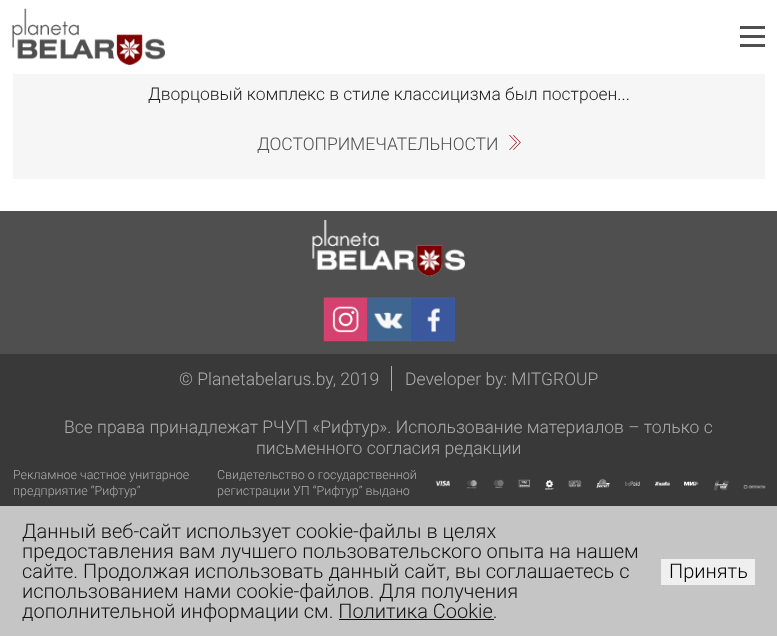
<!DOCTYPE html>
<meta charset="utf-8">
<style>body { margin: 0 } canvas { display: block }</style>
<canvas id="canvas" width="777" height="636"></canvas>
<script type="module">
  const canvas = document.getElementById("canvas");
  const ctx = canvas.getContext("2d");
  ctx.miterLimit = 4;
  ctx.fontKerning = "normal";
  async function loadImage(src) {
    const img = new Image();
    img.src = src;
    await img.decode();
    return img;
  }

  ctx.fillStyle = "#ffffff";
  ctx.fillRect(0, 0, 777, 636);
  ctx.drawImage(await loadImage("img1.png"), 12, 8, 153, 57);
  ctx.fillStyle = "#4f4f4f";
  ctx.fillRect(740, 26, 25, 3);
  ctx.fillRect(740, 35, 25, 3);
  ctx.fillRect(740, 44, 25, 3);
  ctx.fillStyle = "#f6f6f6";
  ctx.fillRect(13, 74, 752, 105);
  ctx.font = "300 17.5px Roboto";
  ctx.fillStyle = "#1b1b1b";
  ctx.fillText("Дворцовый комплекс в стиле классицизма был построен...", 148, 100);
  ctx.fillStyle = "#4f4f4f";
  ctx.fillText("ДОСТОПРИМЕЧАТЕЛЬНОСТИ", 257, 150);
  ctx.drawImage(await loadImage("img2.png"), 509, 135, 12, 15);
  ctx.fillRect(0, 211, 777, 143);
  ctx.drawImage(await loadImage("img3.png"), 312, 220, 153, 57);
  ctx.drawImage(await loadImage("img4.png"), 323, 297, 45, 45);
  ctx.drawImage(await loadImage("img5.png"), 367, 297, 45, 45);
  ctx.drawImage(await loadImage("img6.png"), 411, 297, 44, 45);
  ctx.fillStyle = "#393939";
  ctx.fillRect(0, 354, 777, 152);
  ctx.fillStyle = "#adadad";
  ctx.fillText("© Planetabelarus.by, 2019", 179, 385);
  ctx.fillRect(391, 366, 1, 25);
  ctx.fillText("Developer by: MITGROUP", 405, 385);
  ctx.fillText("Все права принадлежат РЧУП «Рифтур». Использование материалов – только с", 64, 433);
  ctx.fillText("письменного согласия редакции", 256, 454);
  ctx.font = "300 12.5px Roboto";
  ctx.fillText("Рекламное частное унитарное", 13, 479);
  ctx.fillText("предприятие “Рифтур”", 13, 495);
  ctx.fillText("Свидетельство о государственной", 217, 479);
  ctx.fillText("регистрации УП “Рифтур” выдано", 217, 495);
  ctx.drawImage(await loadImage("img7.png"), 435, 480, 15, 7);
  ctx.drawImage(await loadImage("img8.png"), 466, 480, 12, 9);
  ctx.drawImage(await loadImage("img9.png"), 493, 479, 11, 9);
  ctx.drawImage(await loadImage("img10.png"), 518, 479, 12, 9);
  ctx.drawImage(await loadImage("img11.png"), 545, 479, 9, 11);
  ctx.drawImage(await loadImage("img12.png"), 568, 480, 14, 8);
  ctx.drawImage(await loadImage("img13.png"), 596, 478, 14, 10);
  ctx.drawImage(await loadImage("img14.png"), 625, 481, 15, 5);
  ctx.drawImage(await loadImage("img15.png"), 655, 481, 15, 5);
  ctx.drawImage(await loadImage("img16.png"), 684, 481, 15, 5);
  ctx.drawImage(await loadImage("img17.png"), 714, 480, 15, 11);
  ctx.drawImage(await loadImage("img18.png"), 743, 485, 23, 4);
  ctx.fillStyle = "#c5c5c5";
  ctx.fillRect(0, 506, 777, 130);
  ctx.font = "300 20px Roboto";
  ctx.fillStyle = "#111111";
  ctx.fillText("Данный веб-сайт использует cookie-файлы в целях", 22, 538);
  ctx.fillText("предоставления вам лучшего пользовательского опыта на нашем", 22, 558);
  ctx.fillText("сайте. Продолжая использовать данный сайт, вы соглашаетесь с", 22, 578);
  ctx.fillText("использованием нами cookie-файлов. Для получения", 22, 598);
  ctx.fillText("дополнительной информации см. Политика Cookie.", 22, 618);
  ctx.fillRect(339, 619, 155, 1);
  ctx.fillStyle = "#efefef";
  ctx.fillRect(661, 559, 94, 26);
  ctx.fillStyle = "#000000";
  ctx.fillText("Принять", 669, 578);
</script>
